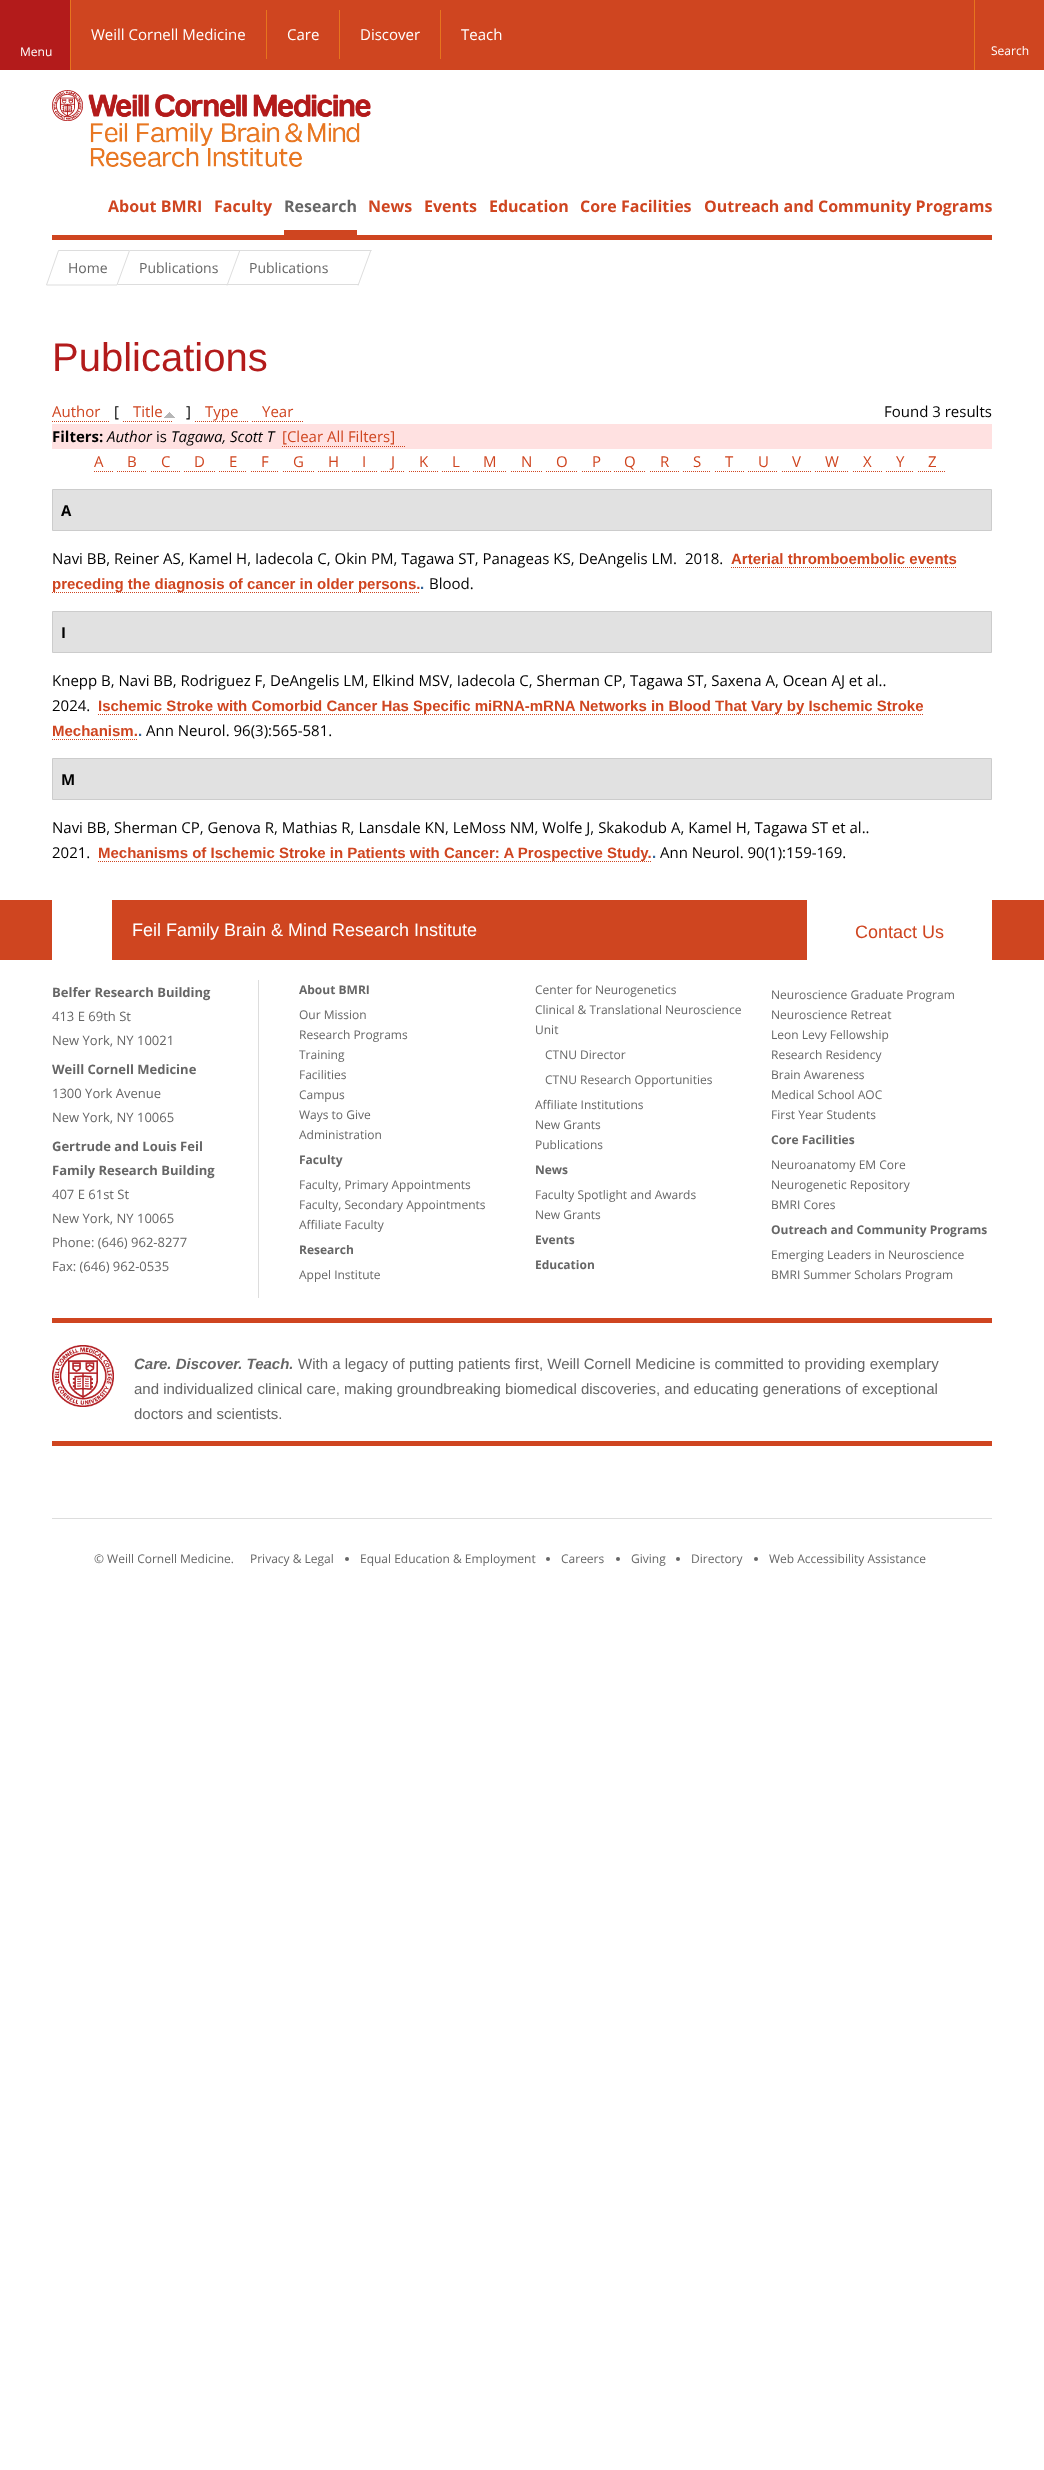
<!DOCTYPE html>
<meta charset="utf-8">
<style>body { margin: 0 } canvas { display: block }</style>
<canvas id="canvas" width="1044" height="2470"></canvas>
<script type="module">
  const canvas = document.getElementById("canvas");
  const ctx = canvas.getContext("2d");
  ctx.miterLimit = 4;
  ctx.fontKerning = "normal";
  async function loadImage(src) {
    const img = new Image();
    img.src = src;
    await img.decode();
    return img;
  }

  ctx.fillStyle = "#ffffff";
  ctx.fillRect(0, 0, 1044, 2470);
  ctx.fillStyle = "#cf4520";
  ctx.fillRect(71, 0, 973, 70);
  ctx.fillStyle = "#e7751d";
  ctx.fillRect(266, 10, 1, 49);
  ctx.font = "15px Open Sans";
  ctx.fillStyle = "#ffffff";
  ctx.fillText("Weill Cornell Medicine", 91, 40);
  ctx.fillStyle = "#e7751d";
  ctx.fillRect(339, 10, 1, 49);
  ctx.fillStyle = "#ffffff";
  ctx.fillText("Care", 287, 40);
  ctx.fillStyle = "#e7751d";
  ctx.fillRect(440, 10, 1, 49);
  ctx.fillStyle = "#ffffff";
  ctx.fillText("Discover", 360, 40);
  ctx.fillText("Teach", 461, 40);
  ctx.fillStyle = "#b31b1b";
  ctx.fillRect(0, 0, 70, 70);
  ctx.fillStyle = "#e7751d";
  ctx.fillRect(70, 0, 1, 70);
  ctx.font = "12px Open Sans";
  ctx.fillStyle = "#ffffff";
  ctx.fillText("Menu", 20, 56);
  ctx.fillStyle = "#e7751d";
  ctx.fillRect(974, 0, 1, 70);
  ctx.fillStyle = "#ffffff";
  ctx.fillText("Search", 991, 55);
  ctx.drawImage(await loadImage("img1.png"), 52, 90, 319, 77);
  ctx.fillStyle = "#cf4520";
  ctx.fillRect(52, 235, 940, 5);
  ctx.font = "bold 16px Open Sans";
  ctx.fillText("About BMRI", 108, 212);
  ctx.fillText("Faculty", 214, 212);
  ctx.fillRect(284, 230, 73, 5);
  ctx.fillStyle = "#666666";
  ctx.fillText("Research", 284, 212);
  ctx.fillStyle = "#cf4520";
  ctx.fillText("News", 368, 212);
  ctx.fillText("Events", 424, 212);
  ctx.fillText("Education", 489, 212);
  ctx.fillText("Core Facilities", 580, 212);
  ctx.fillText("Outreach and Community Programs", 704, 212);
  ctx.beginPath();
  ctx.moveTo(58.5, 250.5);
  ctx.lineTo(129.5, 250.5);
  ctx.lineTo(117, 285);
  ctx.lineTo(46.5, 285);
  ctx.closePath();
  ctx.strokeStyle = "#dddddd";
  ctx.stroke();
  ctx.font = "14px Open Sans";
  ctx.fillStyle = "#666666";
  ctx.fillText("Home", 68, 273);
  ctx.fillStyle = "#dddddd";
  ctx.fillRect(130, 250, 110, 1);
  ctx.beginPath();
  ctx.moveTo(239.5, 250);
  ctx.lineTo(240.5, 250);
  ctx.lineTo(227.5, 285.5);
  ctx.lineTo(226.5, 285.5);
  ctx.closePath();
  ctx.fill();
  ctx.beginPath();
  ctx.moveTo(118, 284);
  ctx.lineTo(228, 284);
  ctx.lineTo(227, 285);
  ctx.lineTo(117, 285);
  ctx.closePath();
  ctx.fill();
  ctx.fillStyle = "#666666";
  ctx.fillText("Publications", 139, 273);
  ctx.fillStyle = "#dddddd";
  ctx.beginPath();
  ctx.moveTo(240, 250);
  ctx.lineTo(372, 250);
  ctx.lineTo(371, 251);
  ctx.lineTo(240, 251);
  ctx.closePath();
  ctx.fill();
  ctx.beginPath();
  ctx.moveTo(370.5, 250);
  ctx.lineTo(371.5, 250);
  ctx.lineTo(358.5, 285.5);
  ctx.lineTo(357.5, 285.5);
  ctx.closePath();
  ctx.fill();
  ctx.beginPath();
  ctx.moveTo(228, 284);
  ctx.lineTo(359, 284);
  ctx.lineTo(359, 285);
  ctx.lineTo(227, 285);
  ctx.closePath();
  ctx.fill();
  ctx.fillStyle = "#666666";
  ctx.fillText("Publications", 249, 273);
  ctx.font = "40px Liberation Sans";
  ctx.fillStyle = "#b31b1b";
  ctx.fillText("Publications", 52, 371);
  ctx.font = "15px Open Sans";
  ctx.fillStyle = "#cf4520";
  ctx.fillText("Author", 52, 417);
  ctx.beginPath();
  ctx.moveTo(52, 421.5);
  ctx.lineTo(110, 421.5);
  ctx.strokeStyle = "#cf4520";
  ctx.setLineDash([1, 1]);
  ctx.stroke();
  ctx.fillStyle = "#000000";
  ctx.fillText("[", 114, 417);
  ctx.fillStyle = "#cf4520";
  ctx.fillText("Title", 133, 417);
  ctx.beginPath();
  ctx.moveTo(123, 421.5);
  ctx.lineTo(173, 421.5);
  ctx.stroke();
  ctx.drawImage(await loadImage("img2.png"), 164, 412, 11, 6);
  ctx.fillStyle = "#000000";
  ctx.fillText("]", 186, 417);
  ctx.fillStyle = "#cf4520";
  ctx.fillText("Type", 205, 417);
  ctx.beginPath();
  ctx.moveTo(195, 421.5);
  ctx.lineTo(248, 421.5);
  ctx.stroke();
  ctx.fillText("Year", 262, 417);
  ctx.beginPath();
  ctx.moveTo(252, 421.5);
  ctx.lineTo(303, 421.5);
  ctx.stroke();
  ctx.fillStyle = "#000000";
  ctx.fillText("Found 3 results", 884, 417);
  ctx.fillStyle = "#ffe1e1";
  ctx.fillRect(52, 424, 940, 25);
  ctx.font = "bold 15px Open Sans";
  ctx.fillStyle = "#000000";
  ctx.fillText("Filters:", 52, 442);
  ctx.font = "italic 15px Open Sans";
  ctx.fillText("Author", 107, 442);
  ctx.font = "15px Open Sans";
  ctx.fillText("is", 156, 442);
  ctx.font = "italic 15px Open Sans";
  ctx.fillText("Tagawa, Scott T", 171, 442);
  ctx.font = "15px Open Sans";
  ctx.fillStyle = "#cf4520";
  ctx.fillText("[Clear All Filters]", 282, 442);
  ctx.beginPath();
  ctx.moveTo(282, 446.5);
  ctx.lineTo(405, 446.5);
  ctx.stroke();
  ctx.fillText("A", 94, 467);
  ctx.beginPath();
  ctx.moveTo(94, 471.5);
  ctx.lineTo(113, 471.5);
  ctx.stroke();
  ctx.fillText("B", 127, 467);
  ctx.beginPath();
  ctx.moveTo(117, 471.5);
  ctx.lineTo(147, 471.5);
  ctx.stroke();
  ctx.fillText("C", 161, 467);
  ctx.beginPath();
  ctx.moveTo(151, 471.5);
  ctx.lineTo(180, 471.5);
  ctx.stroke();
  ctx.fillText("D", 194, 467);
  ctx.beginPath();
  ctx.moveTo(184, 471.5);
  ctx.lineTo(215, 471.5);
  ctx.stroke();
  ctx.fillText("E", 229, 467);
  ctx.beginPath();
  ctx.moveTo(219, 471.5);
  ctx.lineTo(247, 471.5);
  ctx.stroke();
  ctx.fillText("F", 261, 467);
  ctx.beginPath();
  ctx.moveTo(251, 471.5);
  ctx.lineTo(279, 471.5);
  ctx.stroke();
  ctx.fillText("G", 293, 467);
  ctx.beginPath();
  ctx.moveTo(283, 471.5);
  ctx.lineTo(314, 471.5);
  ctx.stroke();
  ctx.fillText("H", 328, 467);
  ctx.beginPath();
  ctx.moveTo(318, 471.5);
  ctx.lineTo(349, 471.5);
  ctx.stroke();
  ctx.fillText("I", 362, 467);
  ctx.beginPath();
  ctx.moveTo(352, 471.5);
  ctx.lineTo(377, 471.5);
  ctx.stroke();
  ctx.fillText("J", 391, 467);
  ctx.beginPath();
  ctx.moveTo(381, 471.5);
  ctx.lineTo(405, 471.5);
  ctx.stroke();
  ctx.fillText("K", 419, 467);
  ctx.beginPath();
  ctx.moveTo(409, 471.5);
  ctx.lineTo(438, 471.5);
  ctx.stroke();
  ctx.fillText("L", 452, 467);
  ctx.beginPath();
  ctx.moveTo(442, 471.5);
  ctx.lineTo(469, 471.5);
  ctx.stroke();
  ctx.fillText("M", 483, 467);
  ctx.beginPath();
  ctx.moveTo(473, 471.5);
  ctx.lineTo(507, 471.5);
  ctx.stroke();
  ctx.fillText("N", 521, 467);
  ctx.beginPath();
  ctx.moveTo(511, 471.5);
  ctx.lineTo(542, 471.5);
  ctx.stroke();
  ctx.fillText("O", 556, 467);
  ctx.beginPath();
  ctx.moveTo(546, 471.5);
  ctx.lineTo(578, 471.5);
  ctx.stroke();
  ctx.fillText("P", 592, 467);
  ctx.beginPath();
  ctx.moveTo(582, 471.5);
  ctx.lineTo(611, 471.5);
  ctx.stroke();
  ctx.fillText("Q", 624, 467);
  ctx.beginPath();
  ctx.moveTo(614, 471.5);
  ctx.lineTo(646, 471.5);
  ctx.stroke();
  ctx.fillText("R", 660, 467);
  ctx.beginPath();
  ctx.moveTo(650, 471.5);
  ctx.lineTo(679, 471.5);
  ctx.stroke();
  ctx.fillText("S", 693, 467);
  ctx.beginPath();
  ctx.moveTo(683, 471.5);
  ctx.lineTo(711, 471.5);
  ctx.stroke();
  ctx.fillText("T", 725, 467);
  ctx.beginPath();
  ctx.moveTo(715, 471.5);
  ctx.lineTo(744, 471.5);
  ctx.stroke();
  ctx.fillText("U", 758, 467);
  ctx.beginPath();
  ctx.moveTo(748, 471.5);
  ctx.lineTo(778, 471.5);
  ctx.stroke();
  ctx.fillText("V", 792, 467);
  ctx.beginPath();
  ctx.moveTo(782, 471.5);
  ctx.lineTo(811, 471.5);
  ctx.stroke();
  ctx.fillText("W", 825, 467);
  ctx.beginPath();
  ctx.moveTo(815, 471.5);
  ctx.lineTo(849, 471.5);
  ctx.stroke();
  ctx.fillText("X", 863, 467);
  ctx.beginPath();
  ctx.moveTo(853, 471.5);
  ctx.lineTo(882, 471.5);
  ctx.stroke();
  ctx.fillText("Y", 896, 467);
  ctx.beginPath();
  ctx.moveTo(886, 471.5);
  ctx.lineTo(914, 471.5);
  ctx.stroke();
  ctx.fillText("Z", 928, 467);
  ctx.beginPath();
  ctx.moveTo(918, 471.5);
  ctx.lineTo(946, 471.5);
  ctx.stroke();
  ctx.fillStyle = "#e1e1e1";
  ctx.beginPath();
  ctx.rect(52.5, 489.5, 939, 41);
  ctx.fill();
  ctx.strokeStyle = "#cccccc";
  ctx.setLineDash([]);
  ctx.stroke();
  ctx.font = "bold 15px Open Sans";
  ctx.fillStyle = "#000000";
  ctx.fillText("A", 61, 516);
  ctx.font = "15px Open Sans";
  ctx.fillText("Navi BB, Reiner AS, Kamel H, Iadecola C, Okin PM, Tagawa ST, Panageas KS, DeAngelis LM.", 52, 564);
  ctx.fillText("2018.", 685, 564);
  ctx.font = "bold 15px Liberation Sans";
  ctx.fillStyle = "#cf4520";
  ctx.fillText("Arterial thromboembolic events", 731, 564);
  ctx.beginPath();
  ctx.moveTo(731, 567.5);
  ctx.lineTo(957, 567.5);
  ctx.strokeStyle = "#cf4520";
  ctx.setLineDash([1, 1]);
  ctx.stroke();
  ctx.beginPath();
  ctx.moveTo(52, 592.5);
  ctx.lineTo(420, 592.5);
  ctx.stroke();
  ctx.fillText("preceding the diagnosis of cancer in older persons.", 52, 589);
  ctx.fillStyle = "#336599";
  ctx.fillText(".", 420, 589);
  ctx.font = "15px Open Sans";
  ctx.fillStyle = "#000000";
  ctx.fillText("Blood.", 429, 589);
  ctx.fillStyle = "#e1e1e1";
  ctx.beginPath();
  ctx.rect(52.5, 611.5, 939, 41);
  ctx.fill();
  ctx.strokeStyle = "#cccccc";
  ctx.setLineDash([]);
  ctx.stroke();
  ctx.font = "bold 15px Open Sans";
  ctx.fillStyle = "#000000";
  ctx.fillText("I", 61, 638);
  ctx.font = "15px Open Sans";
  ctx.fillText("Knepp B, Navi BB, Rodriguez F, DeAngelis LM, Elkind MSV, Iadecola C, Sherman CP, Tagawa ST, Saxena A, Ocean AJ et al..", 52, 686);
  ctx.fillText("2024.", 52, 711);
  ctx.beginPath();
  ctx.moveTo(98, 714.5);
  ctx.lineTo(924, 714.5);
  ctx.strokeStyle = "#cf4520";
  ctx.setLineDash([1, 1]);
  ctx.stroke();
  ctx.font = "bold 15px Liberation Sans";
  ctx.fillStyle = "#cf4520";
  ctx.fillText("Ischemic Stroke with Comorbid Cancer Has Specific miRNA-mRNA Networks in Blood That Vary by Ischemic Stroke", 98, 711);
  ctx.fillText("Mechanism.", 52, 736);
  ctx.fillStyle = "#336599";
  ctx.fillText(".", 138, 736);
  ctx.beginPath();
  ctx.moveTo(52, 739.5);
  ctx.lineTo(138, 739.5);
  ctx.stroke();
  ctx.font = "15px Open Sans";
  ctx.fillStyle = "#000000";
  ctx.fillText("Ann Neurol. 96(3):565-581.", 146, 736);
  ctx.fillStyle = "#e1e1e1";
  ctx.beginPath();
  ctx.rect(52.5, 758.5, 939, 41);
  ctx.fill();
  ctx.strokeStyle = "#cccccc";
  ctx.setLineDash([]);
  ctx.stroke();
  ctx.font = "bold 15px Open Sans";
  ctx.fillStyle = "#000000";
  ctx.fillText("M", 61, 785);
  ctx.font = "15px Open Sans";
  ctx.fillText("Navi BB, Sherman CP, Genova R, Mathias R, Lansdale KN, LeMoss NM, Wolfe J, Skakodub A, Kamel H, Tagawa ST et al..", 52, 833);
  ctx.fillText("2021.", 52, 858);
  ctx.beginPath();
  ctx.moveTo(98, 861.5);
  ctx.lineTo(652, 861.5);
  ctx.strokeStyle = "#cf4520";
  ctx.setLineDash([1, 1]);
  ctx.stroke();
  ctx.font = "bold 15px Liberation Sans";
  ctx.fillStyle = "#cf4520";
  ctx.fillText("Mechanisms of Ischemic Stroke in Patients with Cancer: A Prospective Study.", 98, 858);
  ctx.fillStyle = "#336599";
  ctx.fillText(".", 652, 858);
  ctx.font = "15px Open Sans";
  ctx.fillStyle = "#000000";
  ctx.fillText("Ann Neurol. 90(1):159-169.", 660, 858);
  ctx.fillStyle = "#cf4520";
  ctx.fillRect(0, 900, 1044, 60);
  ctx.fillStyle = "#ffffff";
  ctx.fillRect(52, 900, 60, 60);
  ctx.font = "18px Liberation Sans";
  ctx.fillText("Feil Family Brain & Mind Research Institute", 132, 936);
  ctx.fillRect(807, 900, 185, 60);
  ctx.fillStyle = "#cf4520";
  ctx.fillText("Contact Us", 855, 938);
  ctx.fillRect(52, 1318, 940, 5);
  ctx.fillStyle = "#dddddd";
  ctx.fillRect(258, 980, 1, 318);
  ctx.font = "bold 13px Open Sans";
  ctx.fillStyle = "#666666";
  ctx.fillText("Belfer Research Building", 52, 997);
  ctx.font = "13px Open Sans";
  ctx.fillText("413 E 69th St", 52, 1021);
  ctx.fillText("New York, NY 10021", 52, 1045);
  ctx.font = "bold 13px Open Sans";
  ctx.fillText("Weill Cornell Medicine", 52, 1074);
  ctx.font = "13px Open Sans";
  ctx.fillText("1300 York Avenue", 52, 1098);
  ctx.fillText("New York, NY 10065", 52, 1122);
  ctx.font = "bold 13px Open Sans";
  ctx.fillText("Gertrude and Louis Feil", 52, 1151);
  ctx.fillText("Family Research Building", 52, 1175);
  ctx.font = "13px Open Sans";
  ctx.fillText("407 E 61st St", 52, 1199);
  ctx.fillText("New York, NY 10065", 52, 1223);
  ctx.fillText("Phone: (646) 962-8277", 52, 1247);
  ctx.fillText("Fax: (646) 962-0535", 52, 1271);
  ctx.font = "bold 12px Open Sans";
  ctx.fillText("About BMRI", 299, 994);
  ctx.font = "12px Open Sans";
  ctx.fillText("Our Mission", 299, 1019);
  ctx.fillText("Research Programs", 299, 1039);
  ctx.fillText("Training", 299, 1059);
  ctx.fillText("Facilities", 299, 1079);
  ctx.fillText("Campus", 299, 1099);
  ctx.fillText("Ways to Give", 299, 1119);
  ctx.fillText("Administration", 299, 1139);
  ctx.fillText("Center for Neurogenetics", 535, 994);
  ctx.fillText("Clinical & Translational Neuroscience", 535, 1014);
  ctx.fillText("Unit", 535, 1034);
  ctx.fillText("CTNU Director", 545, 1059);
  ctx.fillText("CTNU Research Opportunities", 545, 1084);
  ctx.fillText("Affiliate Institutions", 535, 1109);
  ctx.fillText("New Grants", 535, 1129);
  ctx.fillText("Publications", 535, 1149);
  ctx.fillText("Appel Institute", 299, 1279);
  ctx.font = "bold 12px Open Sans";
  ctx.fillText("Research", 299, 1254);
  ctx.font = "12px Open Sans";
  ctx.fillText("Neuroscience Graduate Program", 771, 999);
  ctx.fillText("Neuroscience Retreat", 771, 1019);
  ctx.fillText("Leon Levy Fellowship", 771, 1039);
  ctx.fillText("Research Residency", 771, 1059);
  ctx.fillText("Brain Awareness", 771, 1079);
  ctx.fillText("Medical School AOC", 771, 1099);
  ctx.fillText("First Year Students", 771, 1119);
  ctx.font = "bold 12px Open Sans";
  ctx.fillText("Education", 535, 1269);
  ctx.fillText("Faculty", 299, 1164);
  ctx.font = "12px Open Sans";
  ctx.fillText("Faculty, Primary Appointments", 299, 1189);
  ctx.fillText("Faculty, Secondary Appointments", 299, 1209);
  ctx.fillText("Affiliate Faculty", 299, 1229);
  ctx.font = "bold 12px Open Sans";
  ctx.fillText("News", 535, 1174);
  ctx.font = "12px Open Sans";
  ctx.fillText("Faculty Spotlight and Awards", 535, 1199);
  ctx.fillText("New Grants", 535, 1219);
  ctx.font = "bold 12px Open Sans";
  ctx.fillText("Core Facilities", 771, 1144);
  ctx.font = "12px Open Sans";
  ctx.fillText("Neuroanatomy EM Core", 771, 1169);
  ctx.fillText("Neurogenetic Repository", 771, 1189);
  ctx.fillText("BMRI Cores", 771, 1209);
  ctx.font = "bold 12px Open Sans";
  ctx.fillText("Events", 535, 1244);
  ctx.fillText("Outreach and Community Programs", 771, 1234);
  ctx.font = "12px Open Sans";
  ctx.fillText("Emerging Leaders in Neuroscience", 771, 1259);
  ctx.fillText("BMRI Summer Scholars Program", 771, 1279);
  ctx.fillStyle = "#cf4520";
  ctx.fillRect(52, 1441, 940, 5);
  ctx.drawImage(await loadImage("img3.png"), 52, 1345, 62, 62);
  ctx.font = "italic bold 15px Liberation Sans";
  ctx.fillStyle = "#666666";
  ctx.fillText("Care. Discover. Teach.", 134, 1369);
  ctx.font = "15px Liberation Sans";
  ctx.fillText("With a legacy of putting patients first, Weill Cornell Medicine is committed to providing exemplary", 298, 1369);
  ctx.fillText("and individualized clinical care, making groundbreaking biomedical discoveries, and educating generations of exceptional", 134, 1394);
  ctx.fillText("doctors and scientists.", 134, 1419);
  ctx.fillStyle = "#dddddd";
  ctx.fillRect(52, 1518, 940, 1);
  ctx.font = "12px Open Sans";
  ctx.fillStyle = "#666666";
  ctx.fillText("© Weill Cornell Medicine.", 94, 1563);
  ctx.fillText("Privacy & Legal", 250, 1563);
  ctx.beginPath();
  ctx.arc(347, 1559, 2, 0, Math.PI * 2);
  ctx.fill();
  ctx.fillText("Equal Education & Employment", 360, 1563);
  ctx.beginPath();
  ctx.arc(548, 1559, 2, 0, Math.PI * 2);
  ctx.fill();
  ctx.fillText("Careers", 561, 1563);
  ctx.beginPath();
  ctx.arc(618, 1559, 2, 0, Math.PI * 2);
  ctx.fill();
  ctx.fillText("Giving", 631, 1563);
  ctx.beginPath();
  ctx.arc(678, 1559, 2, 0, Math.PI * 2);
  ctx.fill();
  ctx.fillText("Directory", 691, 1563);
  ctx.beginPath();
  ctx.arc(756, 1559, 2, 0, Math.PI * 2);
  ctx.fill();
  ctx.fillText("Web Accessibility Assistance", 769, 1563);
</script>
